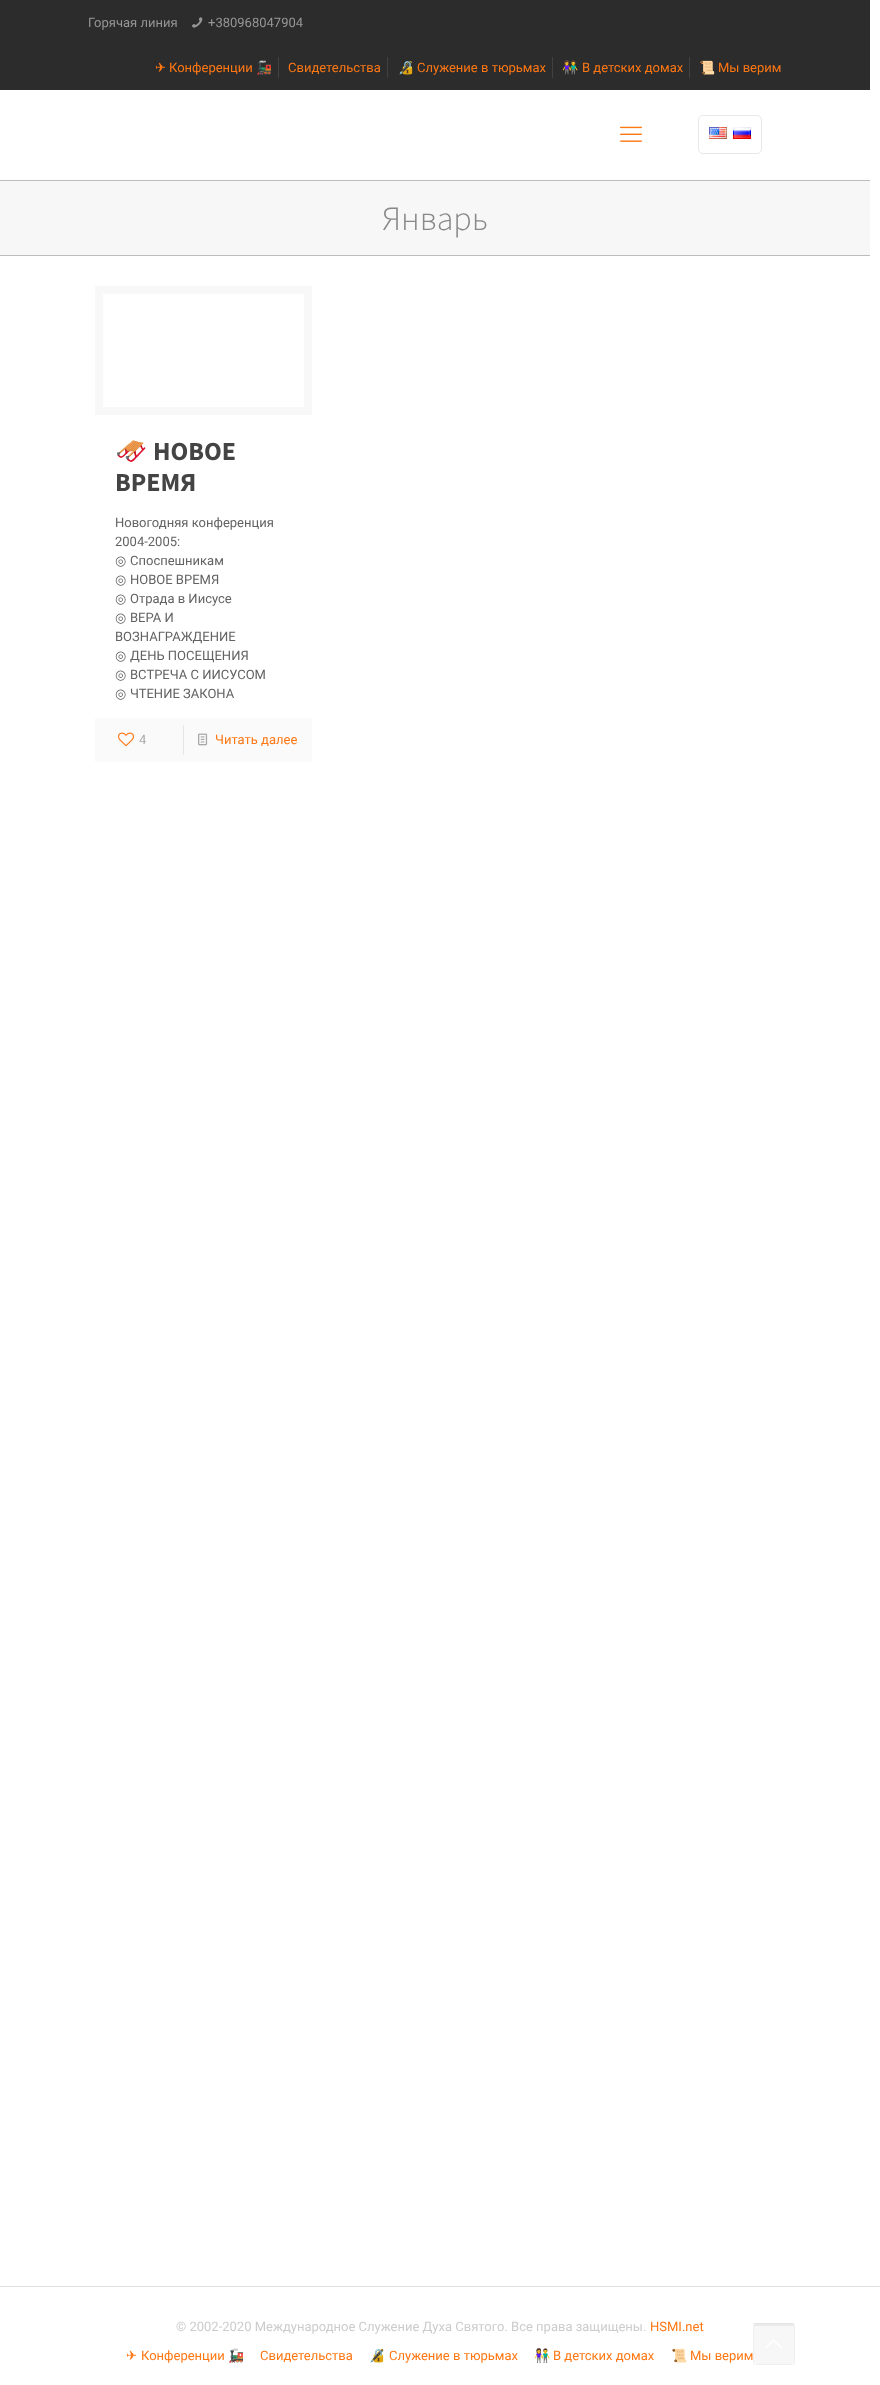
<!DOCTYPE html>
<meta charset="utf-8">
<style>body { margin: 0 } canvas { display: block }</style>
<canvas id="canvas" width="880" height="2385"></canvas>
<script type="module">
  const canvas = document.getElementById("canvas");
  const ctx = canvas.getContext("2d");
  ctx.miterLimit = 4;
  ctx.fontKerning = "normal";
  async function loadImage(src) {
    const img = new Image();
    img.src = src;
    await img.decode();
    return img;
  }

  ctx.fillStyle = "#ffffff";
  ctx.fillRect(0, 0, 880, 2385);
  ctx.fillStyle = "#2c2c2c";
  ctx.fillRect(0, 0, 870, 90);
  ctx.font = "13px Roboto";
  ctx.fillStyle = "#969696";
  ctx.fillText("Горячая линия", 88, 27);
  ctx.drawImage(await loadImage("img1.png"), 192, 17, 11, 11);
  ctx.fillText("+380968047904", 208, 27);
  ctx.fillStyle = "#414141";
  ctx.fillRect(278, 57, 1, 21);
  ctx.font = "13px DejaVu Sans";
  ctx.fillStyle = "#ff7713";
  ctx.fillText("✈", 155, 72);
  ctx.font = "13px Roboto";
  ctx.fillText("Конференции", 169, 72);
  ctx.font = "13px Noto Color Emoji";
  ctx.fillText("🚂", 256, 72);
  ctx.fillStyle = "#414141";
  ctx.fillRect(387, 57, 1, 21);
  ctx.font = "13px Roboto";
  ctx.fillStyle = "#ff7713";
  ctx.fillText("Свидетельства", 288, 72);
  ctx.fillStyle = "#414141";
  ctx.fillRect(552, 57, 1, 21);
  ctx.font = "13px 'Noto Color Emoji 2'";
  ctx.fillStyle = "#ff7713";
  ctx.fillText("🔏", 398, 72);
  ctx.font = "13px Roboto";
  ctx.fillText("Служение в тюрьмах", 417, 72);
  ctx.fillStyle = "#414141";
  ctx.fillRect(689, 57, 1, 21);
  ctx.font = "13px 'Noto Color Emoji 2'";
  ctx.fillStyle = "#ff7713";
  ctx.fillText("👫", 562, 72);
  ctx.font = "13px Roboto";
  ctx.fillText("В детских домах", 582, 72);
  ctx.font = "13px 'Noto Color Emoji 2'";
  ctx.fillText("📜", 699, 72);
  ctx.font = "13px Roboto";
  ctx.fillText("Мы верим", 718, 72);
  ctx.fillStyle = "#bbbcbf";
  ctx.fillRect(0, 180, 870, 1);
  ctx.drawImage(await loadImage("img2.png"), 620, 126, 22, 16);
  ctx.beginPath();
  ctx.roundRect(698.5, 115.5, 63, 38, 4.5);
  ctx.strokeStyle = "#e8e8e8";
  ctx.stroke();
  ctx.drawImage(await loadImage("img3.png"), 709, 127, 18, 12);
  ctx.drawImage(await loadImage("img4.png"), 733, 127, 18, 12);
  ctx.fillStyle = "#f7f7f7";
  ctx.fillRect(0, 181, 870, 74);
  ctx.fillStyle = "#bbbcbf";
  ctx.fillRect(0, 255, 870, 1);
  ctx.font = "300 34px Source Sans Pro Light";
  ctx.fillStyle = "#888888";
  ctx.fillText("Январь", 382, 230);
  ctx.strokeStyle = "#f8f8f8";
  ctx.lineWidth = 8;
  ctx.strokeRect(99, 290, 209, 121);
  ctx.font = "bold 26px Noto Color Emoji";
  ctx.fillStyle = "#444444";
  ctx.fillText("🛷", 115, 460);
  ctx.font = "bold 26px Source Sans Pro";
  ctx.fillText("НОВОЕ", 153, 460);
  ctx.fillText("ВРЕМЯ", 115, 491);
  ctx.font = "13px Roboto";
  ctx.fillStyle = "#626262";
  ctx.fillText("Новогодняя конференция", 115, 527);
  ctx.fillText("2004-2005:", 115, 546);
  ctx.font = "13px DejaVu Sans";
  ctx.fillText("◎", 115, 565);
  ctx.font = "13px Roboto";
  ctx.fillText("Споспешникам", 130, 565);
  ctx.font = "13px DejaVu Sans";
  ctx.fillText("◎", 115, 584);
  ctx.font = "13px Roboto";
  ctx.fillText("НОВОЕ ВРЕМЯ", 130, 584);
  ctx.font = "13px DejaVu Sans";
  ctx.fillText("◎", 115, 603);
  ctx.font = "13px Roboto";
  ctx.fillText("Отрада в Иисусе", 130, 603);
  ctx.font = "13px DejaVu Sans";
  ctx.fillText("◎", 115, 622);
  ctx.font = "13px Roboto";
  ctx.fillText("ВЕРА И", 130, 622);
  ctx.fillText("ВОЗНАГРАЖДЕНИЕ", 115, 641);
  ctx.font = "13px DejaVu Sans";
  ctx.fillText("◎", 115, 660);
  ctx.font = "13px Roboto";
  ctx.fillText("ДЕНЬ ПОСЕЩЕНИЯ", 130, 660);
  ctx.font = "13px DejaVu Sans";
  ctx.fillText("◎", 115, 679);
  ctx.font = "13px Roboto";
  ctx.fillText("ВСТРЕЧА С ИИСУСОМ", 130, 679);
  ctx.font = "13px DejaVu Sans";
  ctx.fillText("◎", 115, 698);
  ctx.font = "13px Roboto";
  ctx.fillText("ЧТЕНИЕ ЗАКОНА", 130, 698);
  ctx.fillStyle = "#fafafa";
  ctx.fillRect(95, 718, 217, 44);
  ctx.drawImage(await loadImage("img5.png"), 118, 732, 16, 15);
  ctx.fillStyle = "#a8a8a8";
  ctx.fillText("4", 139, 744);
  ctx.fillStyle = "#e6e6e6";
  ctx.fillRect(183, 725, 1, 30);
  ctx.drawImage(await loadImage("img6.png"), 198, 733, 10, 13);
  ctx.fillStyle = "#ff7713";
  ctx.fillText("Читать далее", 215, 744);
  ctx.fillStyle = "#e0e1e2";
  ctx.fillRect(0, 2286, 880, 1);
  ctx.fillStyle = "#cccccc";
  ctx.fillText("© 2002-2020 Международное Служение Духа Святого. Все права защищены.", 176, 2331);
  ctx.fillStyle = "#ff7713";
  ctx.fillText("HSMI.net", 650, 2331);
  ctx.font = "13px DejaVu Sans";
  ctx.fillText("✈", 126, 2360);
  ctx.font = "13px Roboto";
  ctx.fillText("Конференции", 141, 2360);
  ctx.font = "13px Noto Color Emoji";
  ctx.fillText("🚂", 228, 2360);
  ctx.font = "13px Roboto";
  ctx.fillText("Свидетельства", 260, 2360);
  ctx.font = "13px 'Noto Color Emoji 2'";
  ctx.fillText("🔏", 369, 2360);
  ctx.font = "13px Roboto";
  ctx.fillText("Служение в тюрьмах", 389, 2360);
  ctx.font = "13px 'Noto Color Emoji 2'";
  ctx.fillText("👫", 534, 2360);
  ctx.font = "13px Roboto";
  ctx.fillText("В детских домах", 553, 2360);
  ctx.font = "13px 'Noto Color Emoji 2'";
  ctx.fillText("📜", 671, 2360);
  ctx.font = "13px Roboto";
  ctx.fillText("Мы верим", 690, 2360);
  ctx.fillStyle = "#f7f7f7";
  ctx.beginPath();
  ctx.roundRect(753, 2323, 42, 42, 5);
  ctx.fill();
  ctx.fillStyle = "rgba(0, 0, 0, 0.05)";
  ctx.fillRect(754, 2323, 40, 3);
  ctx.strokeStyle = "rgba(0, 0, 0, 0.03)";
  ctx.lineWidth = 1;
  ctx.strokeRect(753.5, 2323.5, 41, 41);
  ctx.drawImage(await loadImage("img7.png"), 765, 2339, 17, 9);
</script>
